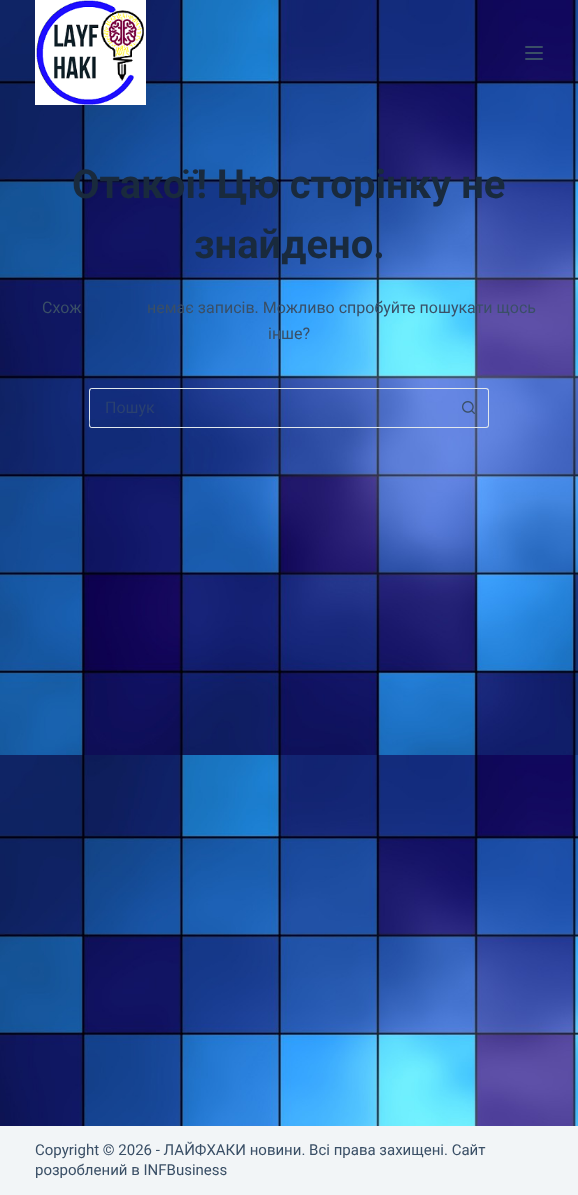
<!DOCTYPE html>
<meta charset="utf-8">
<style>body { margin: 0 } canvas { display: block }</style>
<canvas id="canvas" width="578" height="1195"></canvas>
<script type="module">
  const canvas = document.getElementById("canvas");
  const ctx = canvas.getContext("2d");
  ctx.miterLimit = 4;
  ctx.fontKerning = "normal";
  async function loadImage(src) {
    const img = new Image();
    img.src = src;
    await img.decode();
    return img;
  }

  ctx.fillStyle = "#ffffff";
  ctx.fillRect(0, 0, 578, 1195);
  ctx.drawImage(await loadImage("img1.png"), 0, 105, 578, 1021);
  ctx.drawImage(await loadImage("img2.png"), 0, 0, 578, 105);
  ctx.drawImage(await loadImage("img3.png"), 35, 0, 111, 105);
  ctx.fillStyle = "#3a4f66";
  ctx.beginPath();
  ctx.roundRect(525, 46, 18, 2, 1);
  ctx.fill();
  ctx.beginPath();
  ctx.roundRect(525, 52, 18, 2, 1);
  ctx.fill();
  ctx.beginPath();
  ctx.roundRect(525, 58, 18, 2, 1);
  ctx.fill();
  ctx.font = "bold 40px Roboto";
  ctx.fillStyle = "#192a3d";
  ctx.fillText("Отакої! Цю сторінку не", 72, 198);
  ctx.fillText("знайдено.", 194, 258);
  ctx.font = "16px Roboto";
  ctx.fillStyle = "#3a4f66";
  ctx.fillText("Схож", 42, 313);
  ctx.fillText("немає записів. Можливо спробуйте пошукати щось", 147, 313);
  ctx.fillText("інше?", 268, 339);
  ctx.fillStyle = "#e1e8ed";
  ctx.beginPath();
  ctx.moveTo(92, 388);
  ctx.lineTo(449, 388);
  ctx.lineTo(449, 428);
  ctx.lineTo(92, 428);
  ctx.bezierCurveTo(90, 428, 89, 427, 89, 425);
  ctx.lineTo(89, 391);
  ctx.bezierCurveTo(89, 389, 90, 388, 92, 388);
  ctx.closePath();
  ctx.moveTo(92, 389);
  ctx.lineTo(449, 389);
  ctx.lineTo(449, 427);
  ctx.lineTo(91, 427);
  ctx.bezierCurveTo(89, 425, 90, 420, 90, 419);
  ctx.lineTo(90, 391);
  ctx.lineTo(91, 389);
  ctx.closePath();
  ctx.fill("evenodd");
  ctx.fillStyle = "#2a416f";
  ctx.fillText("Пошук", 105, 413);
  ctx.fillStyle = "#e1e8ed";
  ctx.beginPath();
  ctx.moveTo(449, 388);
  ctx.lineTo(486, 388);
  ctx.bezierCurveTo(488, 388, 489, 389, 489, 391);
  ctx.lineTo(489, 425);
  ctx.bezierCurveTo(489, 427, 488, 428, 486, 428);
  ctx.lineTo(449, 428);
  ctx.closePath();
  ctx.moveTo(449, 389);
  ctx.lineTo(486, 389);
  ctx.bezierCurveTo(487, 389, 488, 390, 488, 391);
  ctx.lineTo(488, 425);
  ctx.bezierCurveTo(488, 426, 487, 427, 486, 427);
  ctx.lineTo(449, 427);
  ctx.closePath();
  ctx.fill("evenodd");
  ctx.drawImage(await loadImage("img4.png"), 462, 401, 13, 13);
  ctx.fillStyle = "#f2f5f7";
  ctx.fillRect(0, 1126, 578, 69);
  ctx.font = "15px Roboto";
  ctx.fillStyle = "#3a4f66";
  ctx.fillText("Copyright © 2026 - ЛАЙФХАКИ новини. Всі права захищені. Сайт", 35, 1155);
  ctx.fillText("розроблений в INFBusiness", 35, 1175);
</script>
